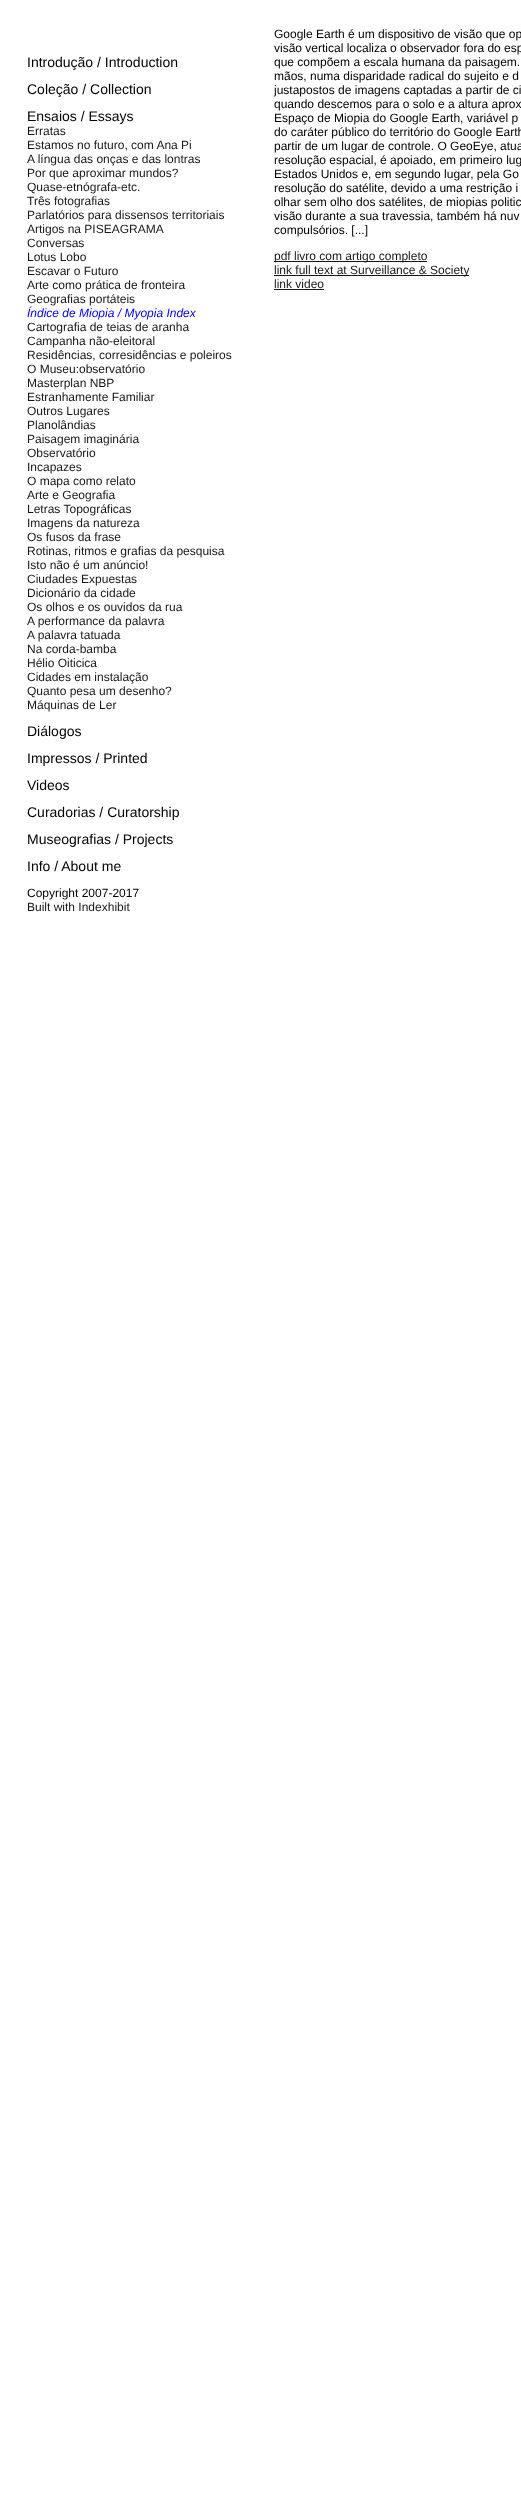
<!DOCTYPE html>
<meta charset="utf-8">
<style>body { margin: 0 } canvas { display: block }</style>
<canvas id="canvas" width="521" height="2496"></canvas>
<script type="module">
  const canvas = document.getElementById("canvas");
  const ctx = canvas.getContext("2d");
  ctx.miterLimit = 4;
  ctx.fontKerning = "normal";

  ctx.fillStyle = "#ffffff";
  ctx.fillRect(0, 0, 521, 2496);
  ctx.font = "14px Liberation Sans";
  ctx.fillStyle = "#000000";
  ctx.fillText("Introdução / Introduction", 27, 67);
  ctx.fillText("Coleção / Collection", 27, 94);
  ctx.fillText("Ensaios / Essays", 27, 121);
  ctx.font = "12px Liberation Sans";
  ctx.fillStyle = "#171717";
  ctx.fillText("Erratas", 27, 135);
  ctx.fillText("Estamos no futuro, com Ana Pi", 27, 149);
  ctx.fillText("A língua das onças e das lontras", 27, 163);
  ctx.fillText("Por que aproximar mundos?", 27, 177);
  ctx.fillText("Quase-etnógrafa-etc.", 27, 191);
  ctx.fillText("Três fotografias", 27, 205);
  ctx.fillText("Parlatórios para dissensos territoriais", 27, 219);
  ctx.fillText("Artigos na PISEAGRAMA", 27, 233);
  ctx.fillText("Conversas", 27, 247);
  ctx.fillText("Lotus Lobo", 27, 261);
  ctx.fillText("Escavar o Futuro", 27, 275);
  ctx.fillText("Arte como prática de fronteira", 27, 289);
  ctx.fillText("Geografias portáteis", 27, 303);
  ctx.font = "italic 12px Liberation Sans";
  ctx.fillStyle = "#0000ff";
  ctx.fillText("Índice de Miopia / Myopia Index", 27, 317);
  ctx.font = "12px Liberation Sans";
  ctx.fillStyle = "#171717";
  ctx.fillText("Cartografia de teias de aranha", 27, 331);
  ctx.fillText("Campanha não-eleitoral", 27, 345);
  ctx.fillText("Residências, corresidências e poleiros", 27, 359);
  ctx.fillText("O Museu:observatório", 27, 373);
  ctx.fillText("Masterplan NBP", 27, 387);
  ctx.fillText("Estranhamente Familiar", 27, 401);
  ctx.fillText("Outros Lugares", 27, 415);
  ctx.fillText("Planolândias", 27, 429);
  ctx.fillText("Paisagem imaginária", 27, 443);
  ctx.fillText("Observatório", 27, 457);
  ctx.fillText("Incapazes", 27, 471);
  ctx.fillText("O mapa como relato", 27, 485);
  ctx.fillText("Arte e Geografia", 27, 499);
  ctx.fillText("Letras Topográficas", 27, 513);
  ctx.fillText("Imagens da natureza", 27, 527);
  ctx.fillText("Os fusos da frase", 27, 541);
  ctx.fillText("Rotinas, ritmos e grafias da pesquisa", 27, 555);
  ctx.fillText("Isto não é um anúncio!", 27, 569);
  ctx.fillText("Ciudades Expuestas", 27, 583);
  ctx.fillText("Dicionário da cidade", 27, 597);
  ctx.fillText("Os olhos e os ouvidos da rua", 27, 611);
  ctx.fillText("A performance da palavra", 27, 625);
  ctx.fillText("A palavra tatuada", 27, 639);
  ctx.fillText("Na corda-bamba", 27, 653);
  ctx.fillText("Hélio Oiticica", 27, 667);
  ctx.fillText("Cidades em instalação", 27, 681);
  ctx.fillText("Quanto pesa um desenho?", 27, 695);
  ctx.fillText("Máquinas de Ler", 27, 709);
  ctx.font = "14px Liberation Sans";
  ctx.fillStyle = "#000000";
  ctx.fillText("Diálogos", 27, 736);
  ctx.fillText("Impressos / Printed", 27, 763);
  ctx.fillText("Videos", 27, 790);
  ctx.fillText("Curadorias / Curatorship", 27, 817);
  ctx.fillText("Museografias / Projects", 27, 844);
  ctx.fillText("Info / About me", 27, 871);
  ctx.font = "12px Liberation Sans";
  ctx.fillText("Copyright 2007-2017", 27, 897);
  ctx.fillStyle = "#171717";
  ctx.fillText("Built with Indexhibit", 27, 911);
  ctx.fillStyle = "#000000";
  ctx.fillText("Google Earth é um dispositivo de visão que op", 274, 38);
  ctx.fillText("visão vertical localiza o observador fora do esp", 274, 52);
  ctx.fillText("que compõem a escala humana da paisagem.", 274, 66);
  ctx.fillText("mãos, numa disparidade radical do sujeito e d", 274, 80);
  ctx.fillText("justapostos de imagens captadas a partir de ci", 274, 94);
  ctx.fillText("quando descemos para o solo e a altura aprox", 274, 108);
  ctx.fillText("Espaço de Miopia do Google Earth, variável p", 274, 122);
  ctx.fillText("do caráter público do território do Google Earth", 274, 136);
  ctx.fillText("partir de um lugar de controle. O GeoEye, atua", 274, 150);
  ctx.fillText("resolução espacial, é apoiado, em primeiro lug", 274, 164);
  ctx.fillText("Estados Unidos e, em segundo lugar, pela Go", 274, 178);
  ctx.fillText("resolução do satélite, devido a uma restrição i", 274, 192);
  ctx.fillText("olhar sem olho dos satélites, de miopias politic", 274, 206);
  ctx.fillText("visão durante a sua travessia, também há nuv", 274, 220);
  ctx.fillText("compulsórios. [...]", 274, 234);
  ctx.fillStyle = "#171717";
  ctx.fillRect(274, 261, 153, 1);
  ctx.fillText("pdf livro com artigo completo", 274, 260);
  ctx.fillRect(274, 275, 195, 1);
  ctx.fillText("link full text at Surveillance & Society", 274, 274);
  ctx.fillText("link video", 274, 288);
  ctx.fillRect(274, 289, 50, 1);
</script>
